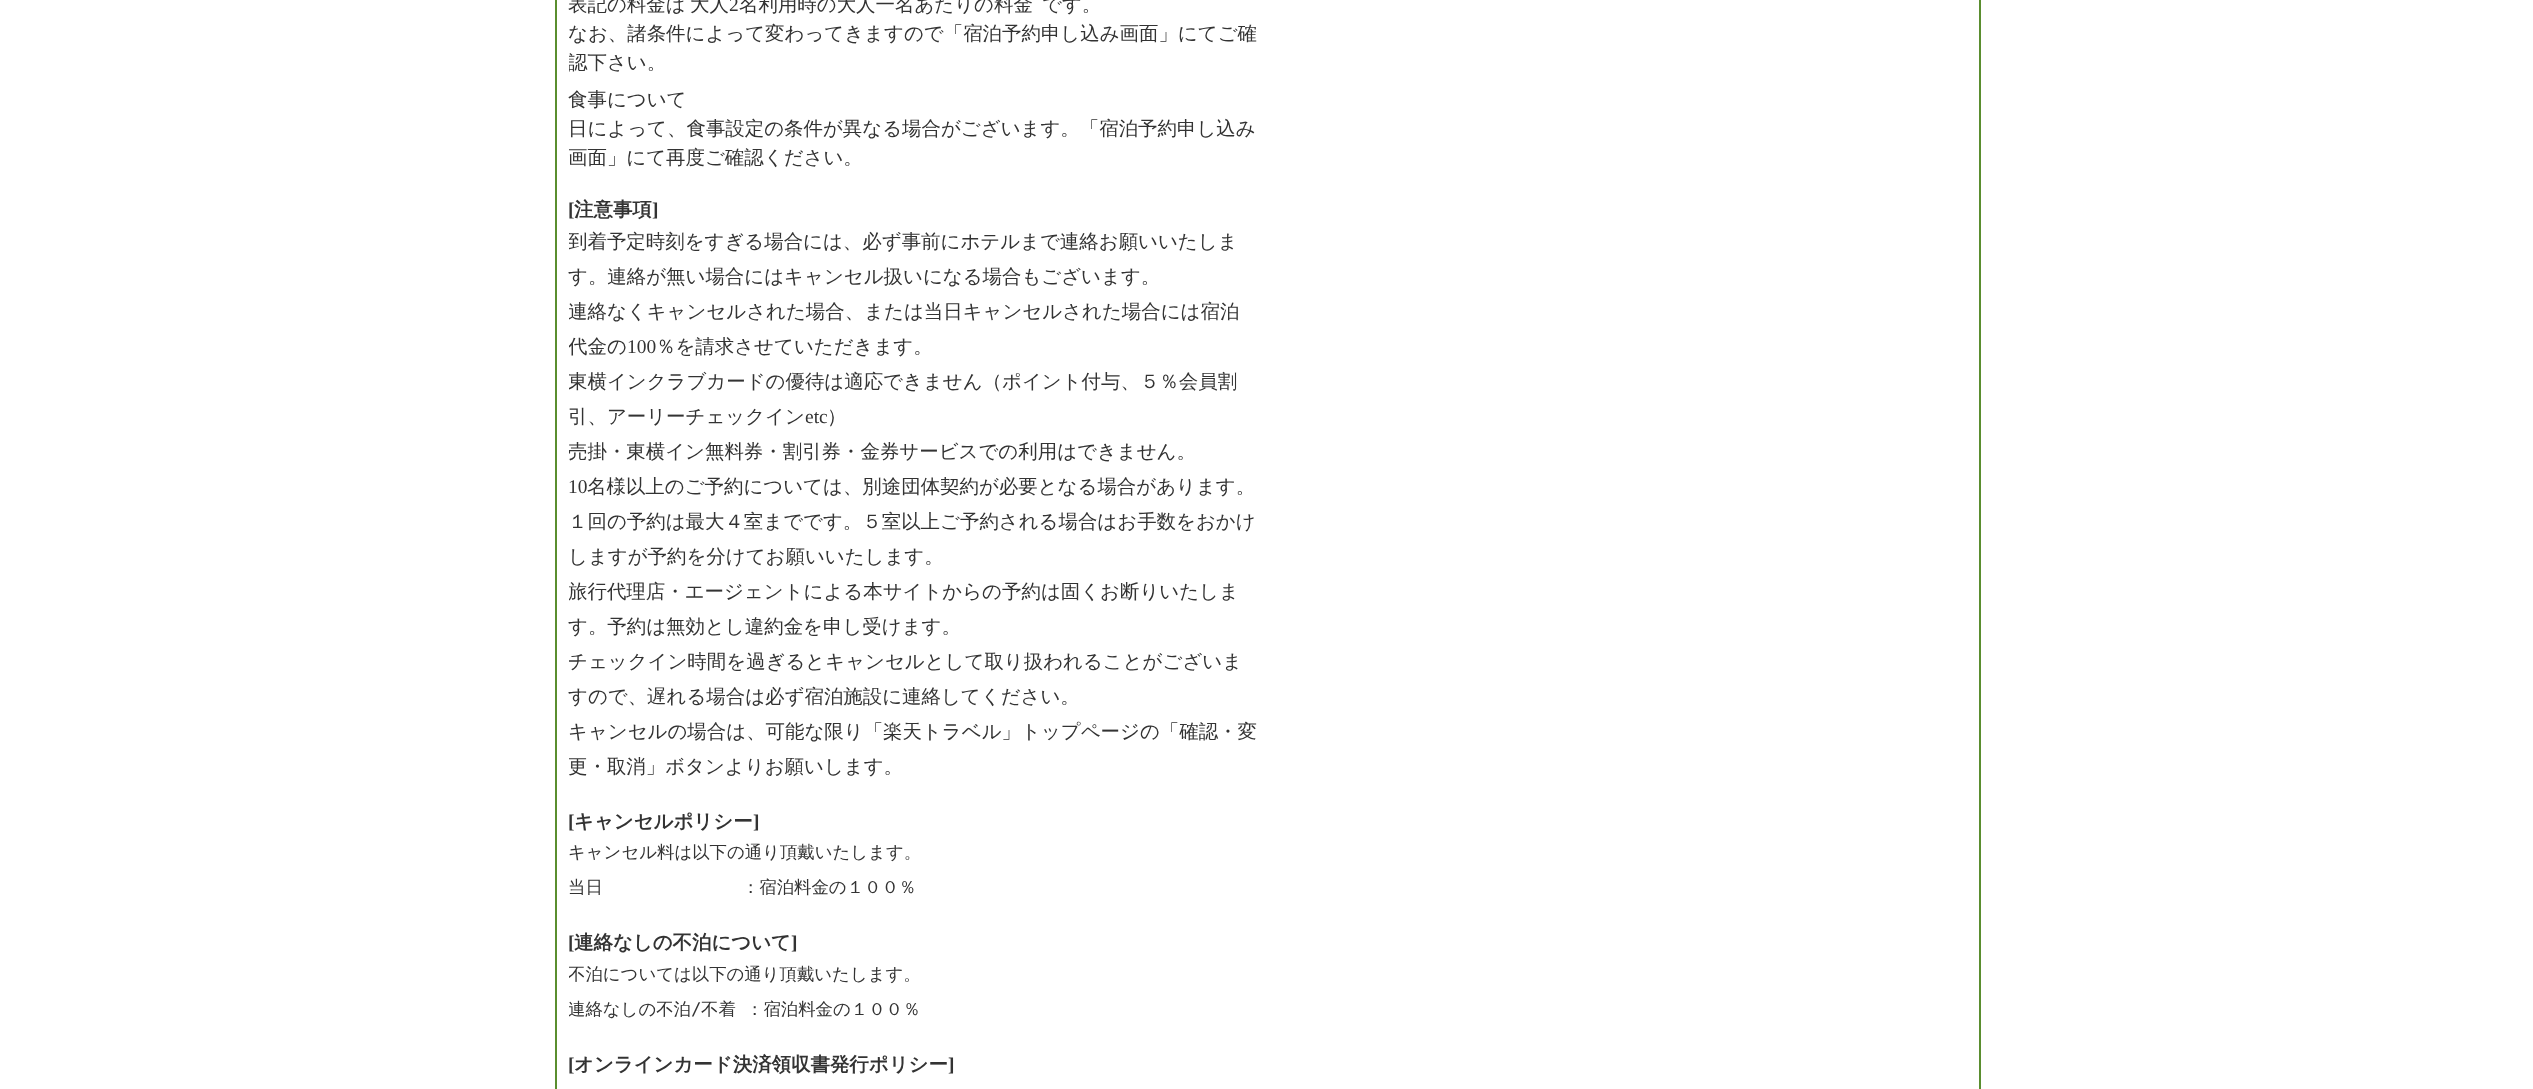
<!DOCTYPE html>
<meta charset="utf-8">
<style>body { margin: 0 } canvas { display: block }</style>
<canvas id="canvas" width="2533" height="1089"></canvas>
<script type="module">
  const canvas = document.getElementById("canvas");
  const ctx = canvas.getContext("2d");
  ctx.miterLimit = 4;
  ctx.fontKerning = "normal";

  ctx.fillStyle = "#ffffff";
  ctx.fillRect(0, 0, 2533, 1089);
  ctx.fillStyle = "#5a8e2f";
  ctx.fillRect(1979, 0, 2, 1089);
  ctx.fillRect(555, 0, 2, 1089);
  ctx.font = "500 19.45px WenQuanYi Zen Hei";
  ctx.fillStyle = "#333333";
  ctx.fillText("表記の料金は", 568, 11);
  ctx.fillText("大人", 690, 11);
  ctx.font = "19.45px Liberation Serif";
  ctx.fillText("2", 729, 11);
  ctx.font = "500 19.45px WenQuanYi Zen Hei";
  ctx.fillText("名利用時の大人一名あたりの料金", 739, 11);
  ctx.fillText("です。", 1042, 11);
  ctx.fillText("なお、諸条件によって変わってきますので「宿泊予約申し込み画面」にてご確", 568, 40);
  ctx.save();
  ctx.beginPath();
  ctx.rect(569, 0, 690, 78);
  ctx.clip();
  ctx.fillText("認下さい。", 568, 69);
  ctx.restore();
  ctx.fillText("食事について", 568, 106);
  ctx.fillText("日によって、食事設定の条件が異なる場合がございます。「宿泊予約申し込み", 568, 135);
  ctx.fillText("画面」にて再度ご確認ください。", 568, 164);
  ctx.font = "bold 19.45px Liberation Serif";
  ctx.fillText("[", 568, 216);
  ctx.font = "bold 19.45px WenQuanYi Zen Hei";
  ctx.fillText("注意事項", 574, 216);
  ctx.font = "bold 19.45px Liberation Serif";
  ctx.fillText("]", 652, 216);
  ctx.save();
  ctx.beginPath();
  ctx.rect(569, 0, 1398, 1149);
  ctx.clip();
  ctx.font = "500 19.45px WenQuanYi Zen Hei";
  ctx.fillText("到着予定時刻をすぎる場合には、必ず事前にホテルまで連絡お願いいたしま", 568, 248);
  ctx.restore();
  ctx.font = "500 19.45px WenQuanYi Zen Hei";
  ctx.fillText("す。連絡が無い場合にはキャンセル扱いになる場合もございます。", 568, 283);
  ctx.save();
  ctx.beginPath();
  ctx.rect(569, 0, 1398, 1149);
  ctx.clip();
  ctx.fillText("連絡なくキャンセルされた場合、または当日キャンセルされた場合には宿泊", 568, 318);
  ctx.fillText("代金の", 568, 353);
  ctx.restore();
  ctx.font = "19.45px Liberation Serif";
  ctx.fillText("100", 627, 353);
  ctx.font = "500 19.45px WenQuanYi Zen Hei";
  ctx.fillText("％を請求させていただきます。", 656, 353);
  ctx.save();
  ctx.beginPath();
  ctx.rect(569, 0, 1398, 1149);
  ctx.clip();
  ctx.fillText("東横インクラブカードの優待は適応できません（ポイント付与、５％会員割", 568, 388);
  ctx.restore();
  ctx.fillText("引、アーリーチェックイン", 568, 423);
  ctx.font = "19.45px Liberation Serif";
  ctx.fillText("etc", 805, 423);
  ctx.font = "500 19.45px WenQuanYi Zen Hei";
  ctx.fillText("）", 827, 423);
  ctx.save();
  ctx.beginPath();
  ctx.rect(569, 0, 1398, 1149);
  ctx.clip();
  ctx.fillText("売掛・東横イン無料券・割引券・金券サービスでの利用はできません。", 568, 458);
  ctx.restore();
  ctx.font = "19.45px Liberation Serif";
  ctx.fillText("10", 568, 493);
  ctx.font = "500 19.45px WenQuanYi Zen Hei";
  ctx.fillText("名様以上のご予約については、別途団体契約が必要となる場合があります。", 587, 493);
  ctx.fillText("１回の予約は最大４室までです。５室以上ご予約される場合はお手数をおかけ", 568, 528);
  ctx.fillText("しますが予約を分けてお願いいたします。", 568, 563);
  ctx.save();
  ctx.beginPath();
  ctx.rect(569, 0, 1398, 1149);
  ctx.clip();
  ctx.fillText("旅行代理店・エージェントによる本サイトからの予約は固くお断りいたしま", 568, 598);
  ctx.restore();
  ctx.fillText("す。予約は無効とし違約金を申し受けます。", 568, 633);
  ctx.fillText("チェックイン時間を過ぎるとキャンセルとして取り扱われることがございま", 568, 668);
  ctx.fillText("すので、遅れる場合は必ず宿泊施設に連絡してください。", 568, 703);
  ctx.fillText("キャンセルの場合は、可能な限り「楽天トラベル」トップページの「確認・変", 568, 738);
  ctx.save();
  ctx.beginPath();
  ctx.rect(569, 0, 1398, 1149);
  ctx.clip();
  ctx.fillText("更・取消」ボタンよりお願いします。", 568, 773);
  ctx.restore();
  ctx.font = "bold 19.45px Liberation Serif";
  ctx.fillText("[", 568, 828);
  ctx.font = "bold 19.45px WenQuanYi Zen Hei";
  ctx.fillText("キャンセルポリシー", 574, 828);
  ctx.font = "bold 19.45px Liberation Serif";
  ctx.fillText("]", 753, 828);
  ctx.font = "500 17.4px WenQuanYi Zen Hei";
  ctx.fillText("キャンセル料は以下の通り頂戴いたします。", 568, 858);
  ctx.fillText("当日　　　　　　　　：宿泊料金の１００％", 568, 893);
  ctx.font = "bold 19.45px Liberation Serif";
  ctx.fillText("[", 568, 949);
  ctx.font = "bold 19.45px WenQuanYi Zen Hei";
  ctx.fillText("連絡なしの不泊について", 574, 949);
  ctx.font = "bold 19.45px Liberation Serif";
  ctx.fillText("]", 791, 949);
  ctx.save();
  ctx.beginPath();
  ctx.rect(569, 0, 1398, 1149);
  ctx.clip();
  ctx.font = "500 17.4px WenQuanYi Zen Hei";
  ctx.fillText("不泊については以下の通り頂戴いたします。", 568, 980);
  ctx.fillText("連絡なしの不泊", 568, 1015);
  ctx.restore();
  ctx.font = "17.4px DejaVu Sans Mono";
  ctx.fillText("/", 691, 1015);
  ctx.wordSpacing = "5px";
  ctx.font = "500 17.4px WenQuanYi Zen Hei";
  ctx.fillText("不着 ：宿泊料金の１００％", 701, 1015);
  ctx.wordSpacing = "0px";
  ctx.font = "bold 19.45px Liberation Serif";
  ctx.fillText("[", 568, 1071);
  ctx.font = "bold 19.45px WenQuanYi Zen Hei";
  ctx.fillText("オンラインカード決済領収書発行ポリシー", 574, 1071);
  ctx.font = "bold 19.45px Liberation Serif";
  ctx.fillText("]", 948, 1071);
</script>
